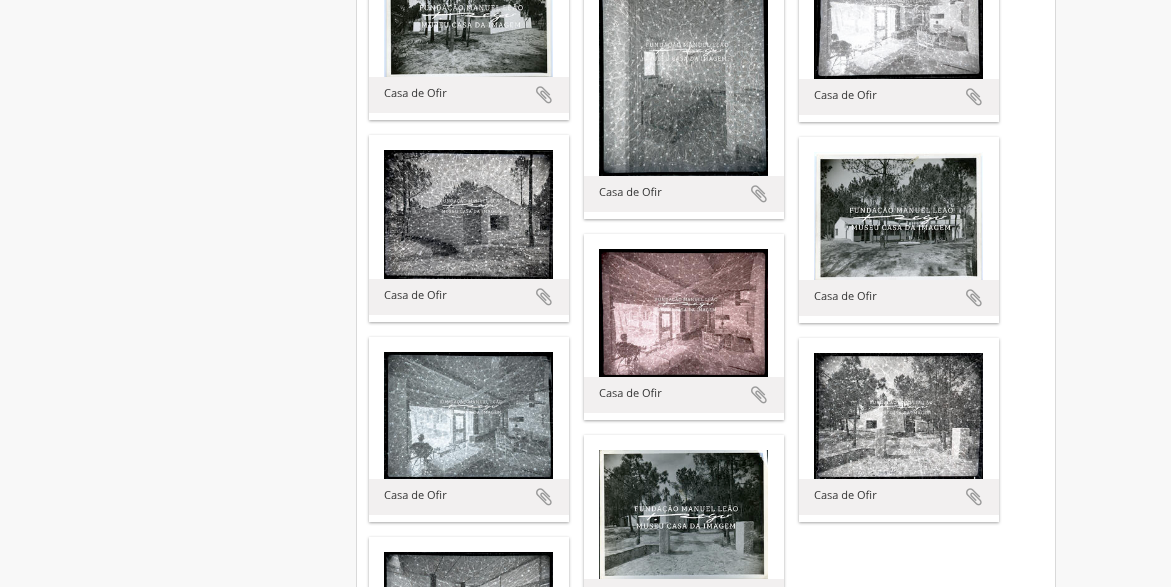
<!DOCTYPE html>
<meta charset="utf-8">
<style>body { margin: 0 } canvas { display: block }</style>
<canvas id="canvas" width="1171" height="587"></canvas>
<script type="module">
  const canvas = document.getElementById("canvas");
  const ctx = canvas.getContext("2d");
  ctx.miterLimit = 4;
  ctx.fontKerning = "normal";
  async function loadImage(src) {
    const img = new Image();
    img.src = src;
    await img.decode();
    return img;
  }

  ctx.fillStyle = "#f8f8f8";
  ctx.fillRect(0, 0, 1171, 587);
  ctx.fillStyle = "rgba(0, 0, 0, 0.2)";
  ctx.filter = "blur(0.5px)";
  ctx.beginPath();
  ctx.roundRect(356, -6, 700, 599, 4);
  ctx.fill();
  ctx.filter = "none";
  ctx.fillStyle = "#ffffff";
  ctx.beginPath();
  ctx.rect(356.5, -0.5, 699, 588);
  ctx.fill();
  ctx.strokeStyle = "#d9d9d9";
  ctx.stroke();
  ctx.save();
  ctx.beginPath();
  ctx.moveTo(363, 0);
  ctx.lineTo(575, 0);
  ctx.lineTo(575, 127);
  ctx.lineTo(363, 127);
  ctx.closePath();
  ctx.moveTo(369, -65);
  ctx.lineTo(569, -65);
  ctx.lineTo(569, 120);
  ctx.lineTo(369, 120);
  ctx.closePath();
  ctx.clip("evenodd");
  ctx.fillStyle = "rgba(25, 25, 25, 0.4)";
  ctx.filter = "blur(1.5px)";
  ctx.beginPath();
  ctx.rect(369, -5, 200, 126);
  ctx.fill();
  ctx.filter = "none";
  ctx.restore();
  ctx.drawImage(await loadImage("img1.png"), 384, 0, 169, 77);
  ctx.fillStyle = "#f2f0f0";
  ctx.fillRect(369, 77, 200, 36);
  ctx.font = "11px Open Sans";
  ctx.fillStyle = "#333333";
  ctx.fillText("Casa de Ofir", 384, 97);
  ctx.drawImage(await loadImage("img2.png"), 536, 86, 16, 18);
  ctx.save();
  ctx.beginPath();
  ctx.moveTo(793, 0);
  ctx.lineTo(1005, 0);
  ctx.lineTo(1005, 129);
  ctx.lineTo(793, 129);
  ctx.closePath();
  ctx.moveTo(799, -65);
  ctx.lineTo(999, -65);
  ctx.lineTo(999, 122);
  ctx.lineTo(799, 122);
  ctx.closePath();
  ctx.clip("evenodd");
  ctx.fillStyle = "rgba(25, 25, 25, 0.4)";
  ctx.filter = "blur(1.5px)";
  ctx.beginPath();
  ctx.rect(799, -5, 200, 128);
  ctx.fill();
  ctx.filter = "none";
  ctx.restore();
  ctx.drawImage(await loadImage("img3.png"), 814, 0, 169, 79);
  ctx.fillStyle = "#f2f0f0";
  ctx.fillRect(799, 79, 200, 36);
  ctx.fillStyle = "#333333";
  ctx.fillText("Casa de Ofir", 814, 99);
  ctx.drawImage(await loadImage("img2.png"), 966, 88, 16, 18);
  ctx.save();
  ctx.beginPath();
  ctx.moveTo(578, 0);
  ctx.lineTo(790, 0);
  ctx.lineTo(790, 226);
  ctx.lineTo(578, 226);
  ctx.closePath();
  ctx.moveTo(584, -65);
  ctx.lineTo(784, -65);
  ctx.lineTo(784, 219);
  ctx.lineTo(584, 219);
  ctx.closePath();
  ctx.clip("evenodd");
  ctx.fillStyle = "rgba(25, 25, 25, 0.4)";
  ctx.filter = "blur(1.5px)";
  ctx.beginPath();
  ctx.rect(584, -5, 200, 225);
  ctx.fill();
  ctx.filter = "none";
  ctx.restore();
  ctx.drawImage(await loadImage("img4.png"), 599, 0, 169, 176);
  ctx.fillStyle = "#f2f0f0";
  ctx.fillRect(584, 176, 200, 36);
  ctx.fillStyle = "#333333";
  ctx.fillText("Casa de Ofir", 599, 196);
  ctx.drawImage(await loadImage("img2.png"), 751, 185, 16, 18);
  ctx.save();
  ctx.beginPath();
  ctx.moveTo(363, 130);
  ctx.lineTo(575, 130);
  ctx.lineTo(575, 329);
  ctx.lineTo(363, 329);
  ctx.closePath();
  ctx.moveTo(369, 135);
  ctx.lineTo(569, 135);
  ctx.lineTo(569, 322);
  ctx.lineTo(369, 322);
  ctx.closePath();
  ctx.clip("evenodd");
  ctx.fillStyle = "rgba(25, 25, 25, 0.4)";
  ctx.filter = "blur(1.5px)";
  ctx.beginPath();
  ctx.rect(369, 136, 200, 187);
  ctx.fill();
  ctx.filter = "none";
  ctx.restore();
  ctx.drawImage(await loadImage("img5.png"), 384, 150, 169, 129);
  ctx.fillStyle = "#f2f0f0";
  ctx.fillRect(369, 279, 200, 36);
  ctx.fillStyle = "#333333";
  ctx.fillText("Casa de Ofir", 384, 299);
  ctx.drawImage(await loadImage("img2.png"), 536, 288, 16, 18);
  ctx.save();
  ctx.beginPath();
  ctx.moveTo(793, 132);
  ctx.lineTo(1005, 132);
  ctx.lineTo(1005, 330);
  ctx.lineTo(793, 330);
  ctx.closePath();
  ctx.moveTo(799, 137);
  ctx.lineTo(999, 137);
  ctx.lineTo(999, 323);
  ctx.lineTo(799, 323);
  ctx.closePath();
  ctx.clip("evenodd");
  ctx.fillStyle = "rgba(25, 25, 25, 0.4)";
  ctx.filter = "blur(1.5px)";
  ctx.beginPath();
  ctx.rect(799, 138, 200, 186);
  ctx.fill();
  ctx.filter = "none";
  ctx.restore();
  ctx.drawImage(await loadImage("img6.png"), 814, 152, 169, 128);
  ctx.fillStyle = "#f2f0f0";
  ctx.fillRect(799, 280, 200, 36);
  ctx.fillStyle = "#333333";
  ctx.fillText("Casa de Ofir", 814, 300);
  ctx.drawImage(await loadImage("img2.png"), 966, 289, 16, 18);
  ctx.save();
  ctx.beginPath();
  ctx.moveTo(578, 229);
  ctx.lineTo(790, 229);
  ctx.lineTo(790, 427);
  ctx.lineTo(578, 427);
  ctx.closePath();
  ctx.moveTo(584, 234);
  ctx.lineTo(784, 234);
  ctx.lineTo(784, 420);
  ctx.lineTo(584, 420);
  ctx.closePath();
  ctx.clip("evenodd");
  ctx.fillStyle = "rgba(25, 25, 25, 0.4)";
  ctx.filter = "blur(1.5px)";
  ctx.beginPath();
  ctx.rect(584, 235, 200, 186);
  ctx.fill();
  ctx.filter = "none";
  ctx.restore();
  ctx.drawImage(await loadImage("img7.png"), 599, 249, 169, 128);
  ctx.fillStyle = "#f2f0f0";
  ctx.fillRect(584, 377, 200, 36);
  ctx.fillStyle = "#333333";
  ctx.fillText("Casa de Ofir", 599, 397);
  ctx.drawImage(await loadImage("img2.png"), 751, 386, 16, 18);
  ctx.save();
  ctx.beginPath();
  ctx.moveTo(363, 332);
  ctx.lineTo(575, 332);
  ctx.lineTo(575, 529);
  ctx.lineTo(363, 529);
  ctx.closePath();
  ctx.moveTo(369, 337);
  ctx.lineTo(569, 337);
  ctx.lineTo(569, 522);
  ctx.lineTo(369, 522);
  ctx.closePath();
  ctx.clip("evenodd");
  ctx.fillStyle = "rgba(25, 25, 25, 0.4)";
  ctx.filter = "blur(1.5px)";
  ctx.beginPath();
  ctx.rect(369, 338, 200, 185);
  ctx.fill();
  ctx.filter = "none";
  ctx.restore();
  ctx.drawImage(await loadImage("img8.png"), 384, 352, 169, 127);
  ctx.fillStyle = "#f2f0f0";
  ctx.fillRect(369, 479, 200, 36);
  ctx.fillStyle = "#333333";
  ctx.fillText("Casa de Ofir", 384, 499);
  ctx.drawImage(await loadImage("img2.png"), 536, 488, 16, 18);
  ctx.save();
  ctx.beginPath();
  ctx.moveTo(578, 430);
  ctx.lineTo(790, 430);
  ctx.lineTo(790, 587);
  ctx.lineTo(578, 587);
  ctx.closePath();
  ctx.moveTo(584, 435);
  ctx.lineTo(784, 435);
  ctx.lineTo(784, 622);
  ctx.lineTo(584, 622);
  ctx.closePath();
  ctx.clip("evenodd");
  ctx.fillStyle = "rgba(25, 25, 25, 0.4)";
  ctx.filter = "blur(1.5px)";
  ctx.beginPath();
  ctx.rect(584, 436, 200, 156);
  ctx.fill();
  ctx.filter = "none";
  ctx.restore();
  ctx.drawImage(await loadImage("img9.png"), 599, 450, 169, 129);
  ctx.fillStyle = "#f2f0f0";
  ctx.fillRect(584, 579, 200, 8);
  ctx.save();
  ctx.beginPath();
  ctx.moveTo(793, 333);
  ctx.lineTo(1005, 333);
  ctx.lineTo(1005, 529);
  ctx.lineTo(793, 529);
  ctx.closePath();
  ctx.moveTo(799, 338);
  ctx.lineTo(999, 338);
  ctx.lineTo(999, 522);
  ctx.lineTo(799, 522);
  ctx.closePath();
  ctx.clip("evenodd");
  ctx.fillStyle = "rgba(25, 25, 25, 0.4)";
  ctx.filter = "blur(1.5px)";
  ctx.beginPath();
  ctx.rect(799, 339, 200, 184);
  ctx.fill();
  ctx.filter = "none";
  ctx.restore();
  ctx.drawImage(await loadImage("img10.png"), 814, 353, 169, 126);
  ctx.fillRect(799, 479, 200, 36);
  ctx.fillStyle = "#333333";
  ctx.fillText("Casa de Ofir", 814, 499);
  ctx.drawImage(await loadImage("img2.png"), 966, 488, 16, 18);
  ctx.save();
  ctx.beginPath();
  ctx.moveTo(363, 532);
  ctx.lineTo(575, 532);
  ctx.lineTo(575, 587);
  ctx.lineTo(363, 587);
  ctx.closePath();
  ctx.moveTo(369, 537);
  ctx.lineTo(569, 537);
  ctx.lineTo(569, 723);
  ctx.lineTo(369, 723);
  ctx.closePath();
  ctx.clip("evenodd");
  ctx.fillStyle = "rgba(25, 25, 25, 0.4)";
  ctx.filter = "blur(1.5px)";
  ctx.beginPath();
  ctx.rect(369, 538, 200, 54);
  ctx.fill();
  ctx.filter = "none";
  ctx.restore();
  ctx.drawImage(await loadImage("img11.png"), 384, 552, 169, 35);
</script>
